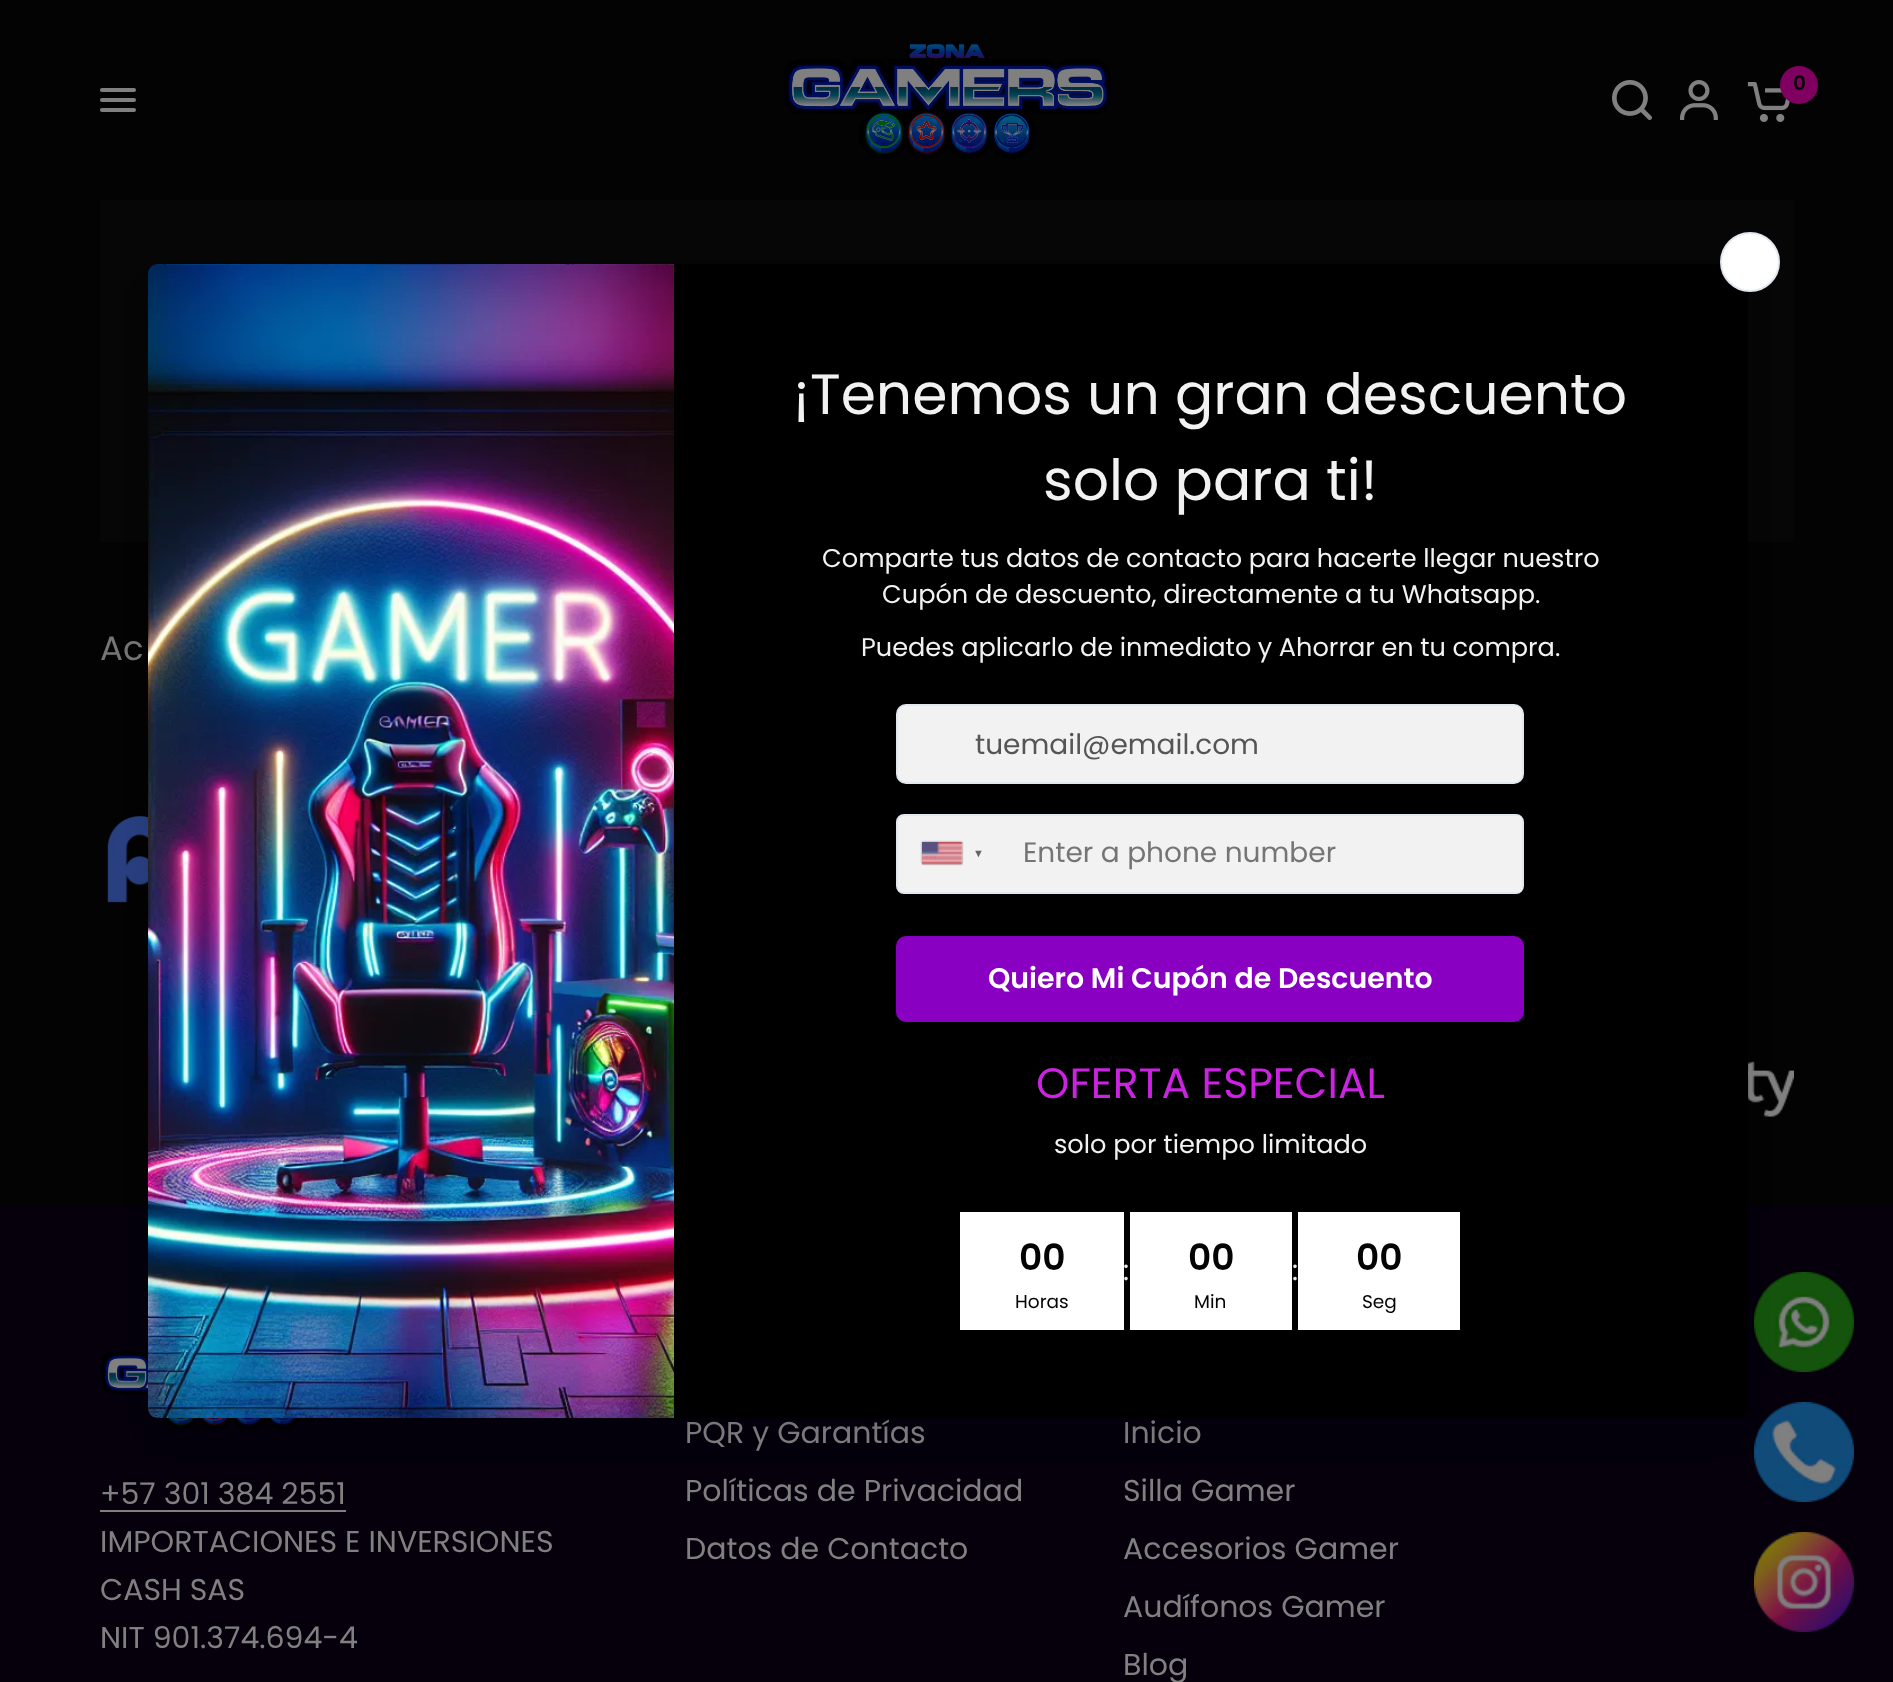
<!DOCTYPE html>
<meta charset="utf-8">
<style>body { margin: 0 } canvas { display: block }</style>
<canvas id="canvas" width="1893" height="1682"></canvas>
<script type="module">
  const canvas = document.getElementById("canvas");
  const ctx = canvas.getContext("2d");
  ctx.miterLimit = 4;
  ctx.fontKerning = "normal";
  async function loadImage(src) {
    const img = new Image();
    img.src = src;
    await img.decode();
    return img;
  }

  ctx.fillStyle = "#030303";
  ctx.fillRect(0, 0, 1893, 1682);
  ctx.drawImage(await loadImage("img1.png"), 784, 41, 327, 118);
  ctx.drawImage(await loadImage("img2.png"), 1612, 80, 40, 40);
  ctx.drawImage(await loadImage("img3.png"), 1680, 80, 38, 40);
  ctx.drawImage(await loadImage("img4.png"), 1747, 82, 43, 40);
  ctx.fillStyle = "#800061";
  ctx.beginPath();
  ctx.arc(1799, 85, 19, 0, Math.PI * 2);
  ctx.fill();
  ctx.font = "600 20px Poppins";
  ctx.fillStyle = "#030303";
  ctx.fillText("0", 1793, 90);
  ctx.fillStyle = "#808080";
  ctx.beginPath();
  ctx.roundRect(100, 88, 36, 4, 2);
  ctx.fill();
  ctx.beginPath();
  ctx.roundRect(100, 98, 36, 4, 2);
  ctx.fill();
  ctx.beginPath();
  ctx.roundRect(100, 108, 36, 4, 2);
  ctx.fill();
  ctx.fillStyle = "#060606";
  ctx.fillRect(100, 200, 1694, 342);
  ctx.font = "34px Poppins";
  ctx.fillStyle = "#757575";
  ctx.fillText("Ac", 100, 660);
  ctx.drawImage(await loadImage("img5.png"), 107, 815, 41, 88);
  ctx.drawImage(await loadImage("img6.png"), 1748, 1060, 46, 57);
  ctx.fillStyle = "#05000c";
  ctx.fillRect(0, 1206, 1893, 476);
  ctx.drawImage(await loadImage("img7.png"), 101, 1350, 200, 80);
  ctx.font = "30px Poppins";
  ctx.fillStyle = "#808080";
  ctx.fillText("+57 301 384 2551", 100, 1504);
  ctx.fillRect(100, 1510, 246, 2);
  ctx.fillText("IMPORTACIONES E INVERSIONES", 100, 1552);
  ctx.fillText("CASH SAS", 100, 1600);
  ctx.fillText("NIT 901.374.694-4", 100, 1648);
  ctx.fillText("PQR y Garantías", 685, 1443);
  ctx.fillText("Políticas de Privacidad", 685, 1501);
  ctx.fillText("Datos de Contacto", 685, 1559);
  ctx.fillText("Inicio", 1123, 1443);
  ctx.fillText("Silla Gamer", 1123, 1501);
  ctx.fillText("Accesorios Gamer", 1123, 1559);
  ctx.fillText("Audífonos Gamer", 1123, 1617);
  ctx.fillText("Blog", 1123, 1675);
  ctx.drawImage(await loadImage("img8.png"), 1754, 1272, 100, 100);
  ctx.drawImage(await loadImage("img9.png"), 1754, 1402, 100, 100);
  ctx.drawImage(await loadImage("img10.png"), 1754, 1532, 100, 100);
  ctx.fillStyle = "rgba(0, 0, 0, 0.1)";
  ctx.filter = "blur(15px)";
  ctx.beginPath();
  ctx.roundRect(154, 290, 1588, 1142, 4);
  ctx.fill();
  ctx.filter = "none";
  ctx.fillStyle = "#000000";
  ctx.beginPath();
  ctx.roundRect(148, 264, 1600, 1154, 10);
  ctx.fill();
  ctx.fillStyle = "#ffffff";
  ctx.beginPath();
  ctx.arc(1750, 262, 29, 0, Math.PI * 2);
  ctx.fill();
  ctx.strokeStyle = "#e2e8f0";
  ctx.lineWidth = 2;
  ctx.stroke();
  ctx.drawImage(await loadImage("img11.png"), 148, 264, 526, 1154);
  ctx.font = "56.8px Poppins";
  ctx.fillStyle = "#f2f2f2";
  ctx.fillText("¡Tenemos un gran descuento", 793, 414);
  ctx.fillText("solo para ti!", 1043, 500);
  ctx.wordSpacing = "-0.25px";
  ctx.font = "25.6px Poppins";
  ctx.fillText("Comparte tus datos de contacto para hacerte llegar nuestro", 822, 567);
  ctx.wordSpacing = "0px";
  ctx.fillText("Cupón de descuento, directamente a tu Whatsapp.", 882, 603);
  ctx.wordSpacing = "-0.25px";
  ctx.fillText("Puedes aplicarlo de inmediato y Ahorrar en tu compra.", 861, 656);
  ctx.beginPath();
  ctx.roundRect(897, 705, 626, 78, 9);
  ctx.fill();
  ctx.stroke();
  ctx.wordSpacing = "0px";
  ctx.font = "28px Poppins";
  ctx.fillStyle = "#555555";
  ctx.fillText("tuemail@email.com", 975, 754);
  ctx.fillStyle = "#f2f2f2";
  ctx.beginPath();
  ctx.roundRect(897, 815, 626, 78, 7);
  ctx.fill();
  ctx.stroke();
  ctx.fillStyle = "#888888";
  ctx.filter = "blur(1px)";
  ctx.beginPath();
  ctx.rect(922, 842, 40, 22);
  ctx.fill();
  ctx.filter = "none";
  ctx.fillStyle = "#dbdbdb";
  ctx.fillRect(922, 842, 40, 22);
  ctx.drawImage(await loadImage("img12.png"), 922, 842, 41, 23);
  ctx.letterSpacing = "11px";
  ctx.font = "11px Liberation Serif";
  ctx.fillStyle = "#666666";
  ctx.fillText("▼", 973, 857);
  ctx.fillStyle = "#f2f2f2";
  ctx.beginPath();
  ctx.roundRect(1010, 816, 512, 76, [0, 4, 4, 0]);
  ctx.fill();
  ctx.letterSpacing = "0px";
  ctx.font = "28px Poppins";
  ctx.fillStyle = "#757575";
  ctx.fillText("Enter a phone number", 1023, 862);
  ctx.fillStyle = "#8900c2";
  ctx.beginPath();
  ctx.roundRect(896, 936, 628, 86, 10);
  ctx.fill();
  ctx.font = "600 28.4px Poppins";
  ctx.fillStyle = "#ffffff";
  ctx.fillText("Quiero Mi Cupón de Descuento", 988, 988);
  ctx.font = "42.5px Poppins";
  ctx.fillStyle = "#cb23e1";
  ctx.fillText("OFERTA ESPECIAL", 1036, 1098);
  ctx.font = "25.6px Poppins";
  ctx.fillStyle = "#f2f2f2";
  ctx.fillText("solo por tiempo limitado", 1054, 1153);
  ctx.fillStyle = "#ffffff";
  ctx.fillRect(960, 1212, 164, 118);
  ctx.font = "600 36px Poppins";
  ctx.fillStyle = "#030303";
  ctx.fillText("00", 1019, 1270);
  ctx.font = "18.5px Poppins";
  ctx.fillText("Horas", 1015, 1308);
  ctx.font = "28.4px Poppins";
  ctx.fillStyle = "#eaeaea";
  ctx.fillText(":", 1123, 1280);
  ctx.fillStyle = "#ffffff";
  ctx.fillRect(1130, 1212, 162, 118);
  ctx.font = "600 36px Poppins";
  ctx.fillStyle = "#030303";
  ctx.fillText("00", 1188, 1270);
  ctx.font = "18.5px Poppins";
  ctx.fillText("Min", 1194, 1308);
  ctx.font = "28.4px Poppins";
  ctx.fillStyle = "#eaeaea";
  ctx.fillText(":", 1292, 1280);
  ctx.fillStyle = "#ffffff";
  ctx.fillRect(1298, 1212, 162, 118);
  ctx.font = "600 36px Poppins";
  ctx.fillStyle = "#030303";
  ctx.fillText("00", 1356, 1270);
  ctx.font = "18.5px Poppins";
  ctx.fillText("Seg", 1362, 1308);
</script>
